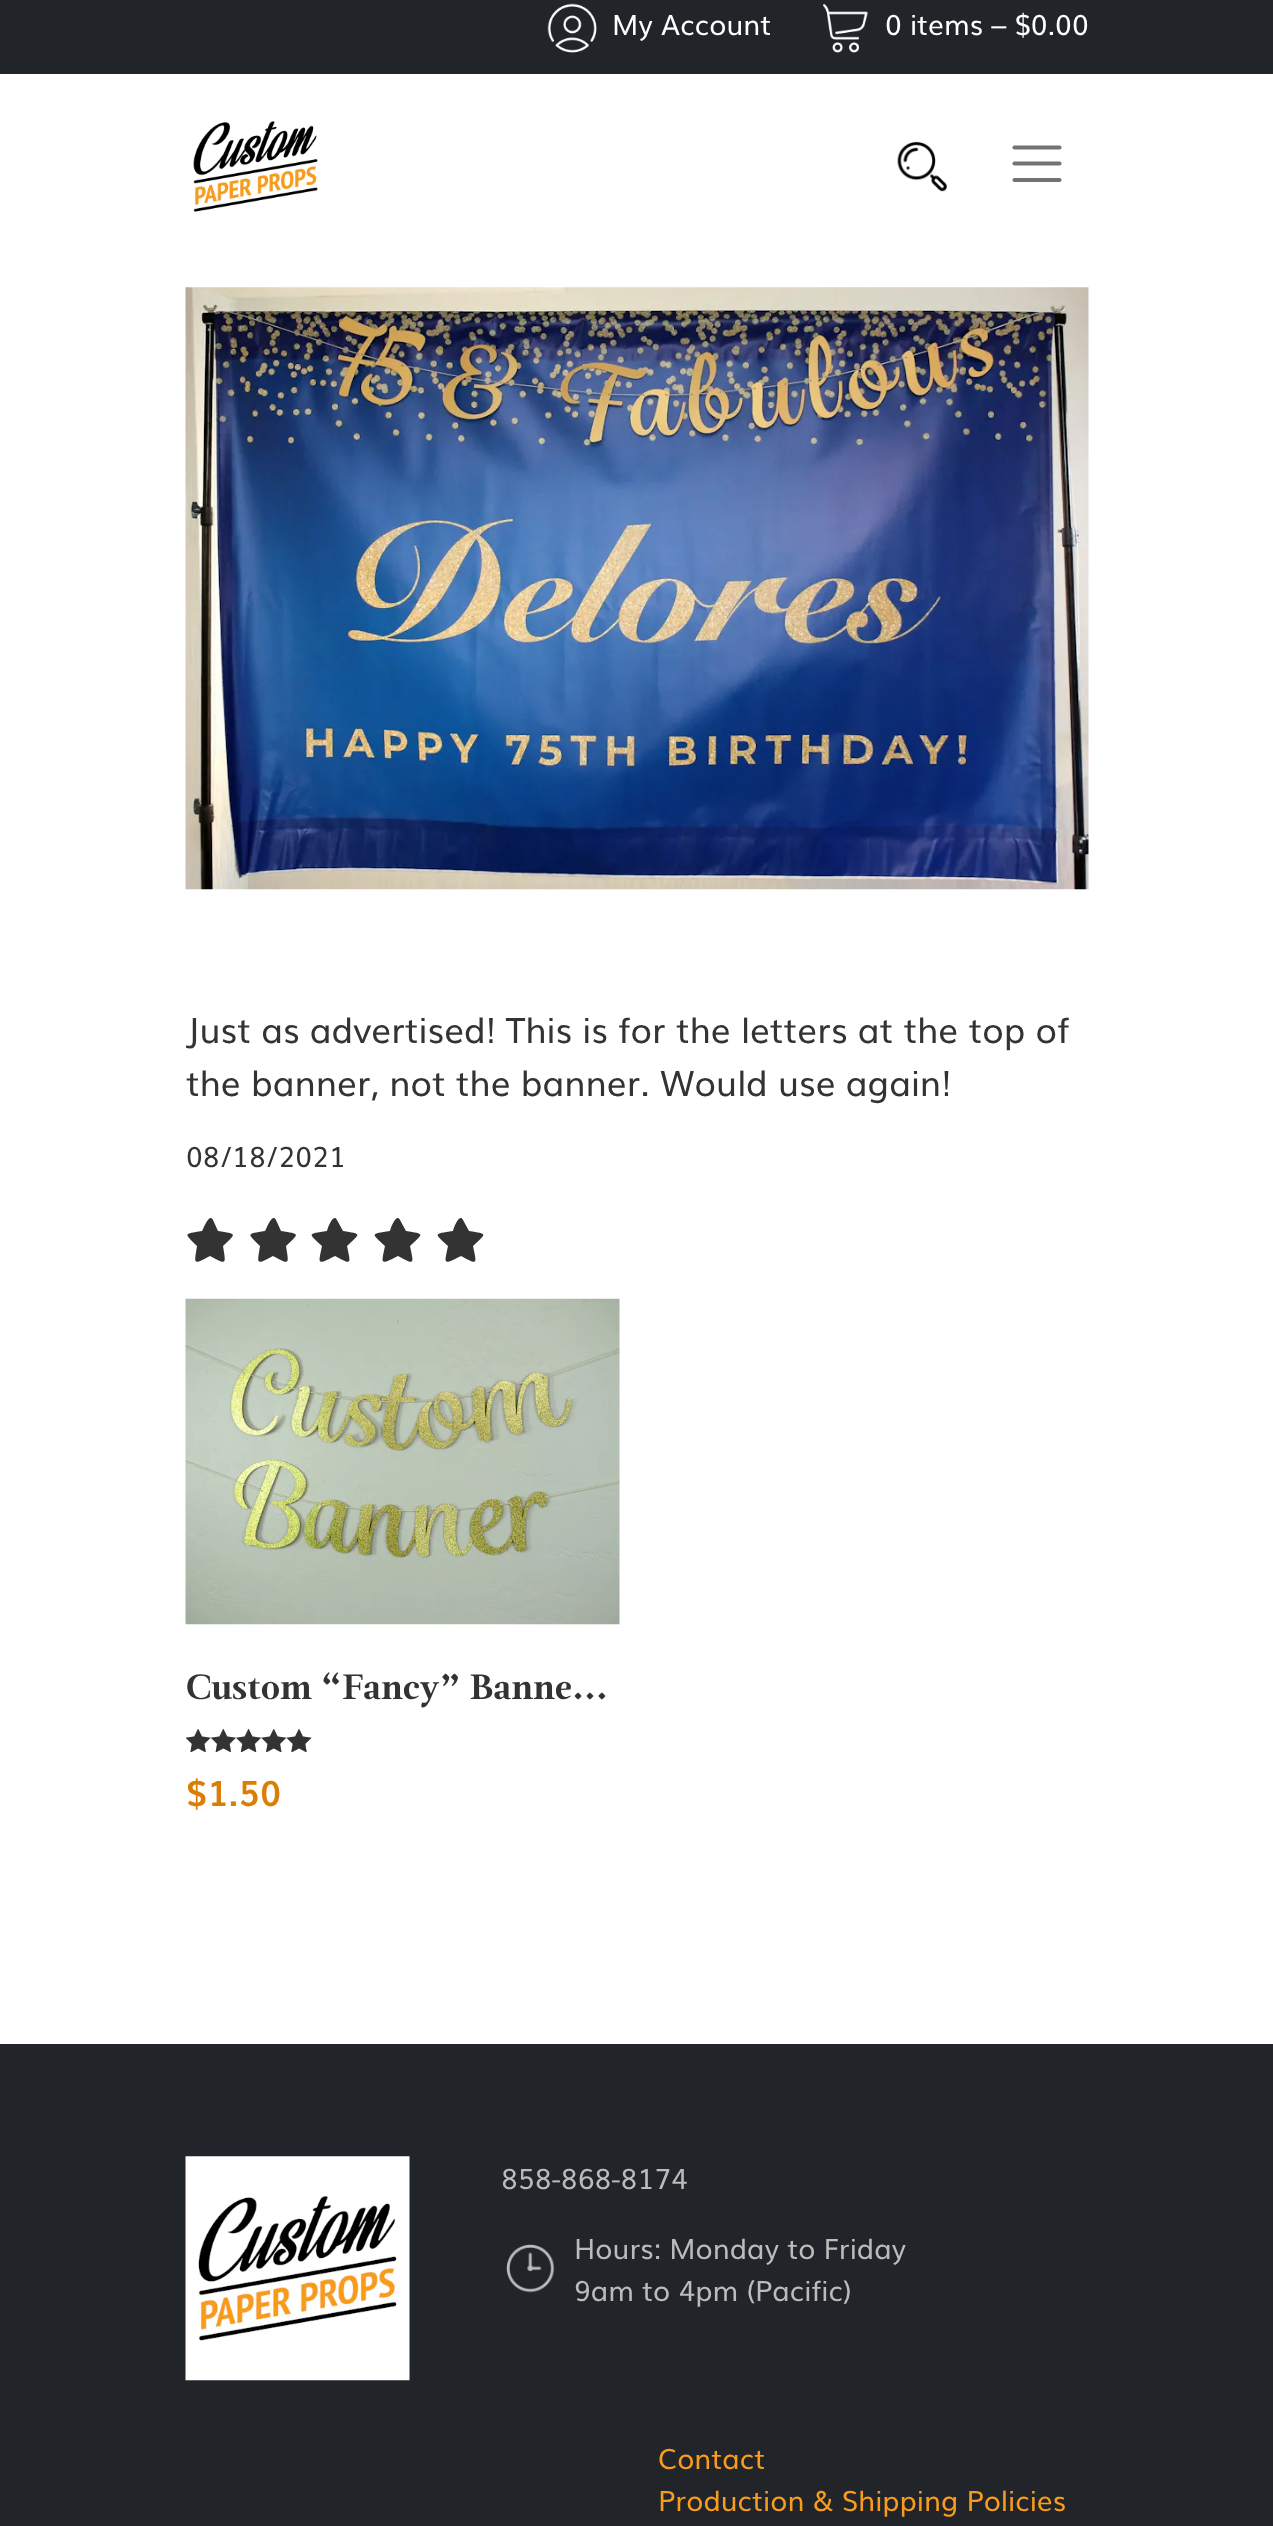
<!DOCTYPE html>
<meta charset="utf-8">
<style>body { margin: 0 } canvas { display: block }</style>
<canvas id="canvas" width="1273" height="2526"></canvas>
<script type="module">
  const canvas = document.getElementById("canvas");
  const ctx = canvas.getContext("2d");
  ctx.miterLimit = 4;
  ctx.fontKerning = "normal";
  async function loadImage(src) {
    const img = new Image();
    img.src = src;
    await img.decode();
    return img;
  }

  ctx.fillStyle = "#ffffff";
  ctx.fillRect(0, 0, 1273, 2526);
  ctx.fillStyle = "#212529";
  ctx.fillRect(0, 0, 1273, 74);
  ctx.drawImage(await loadImage("img1.png"), 547, 3, 50, 50);
  ctx.font = "28px Muli";
  ctx.fillStyle = "#ffffff";
  ctx.fillText("My Account", 612, 35);
  ctx.drawImage(await loadImage("img2.png"), 823, 3, 45, 50);
  ctx.fillText("0 items – $0.00", 885, 35);
  ctx.drawImage(await loadImage("img3.png"), 193, 121, 125, 91);
  ctx.drawImage(await loadImage("img4.png"), 897, 141, 50, 51);
  ctx.beginPath();
  ctx.moveTo(1014.5, 147.5);
  ctx.lineTo(1059.5, 147.5);
  ctx.moveTo(1014.5, 163.5);
  ctx.lineTo(1059.5, 163.5);
  ctx.moveTo(1014.5, 180);
  ctx.lineTo(1059.5, 180);
  ctx.strokeStyle = "#737373";
  ctx.lineWidth = 4.1;
  ctx.lineCap = "round";
  ctx.stroke();
  ctx.drawImage(await loadImage("img5.png"), 185, 287, 904, 603);
  ctx.font = "35px Muli";
  ctx.fillStyle = "#333333";
  ctx.fillText("Just as advertised! This is for the letters at the top of", 186, 1043);
  ctx.fillText("the banner, not the banner. Would use again!", 186, 1096);
  ctx.font = "28px Muli";
  ctx.fillText("08/18/2021", 186, 1167);
  ctx.beginPath();
  ctx.moveTo(213, 1220);
  ctx.bezierCurveTo(209, 1212, 203, 1230, 202, 1231);
  ctx.bezierCurveTo(183, 1234, 184, 1233, 197, 1246);
  ctx.bezierCurveTo(194, 1265, 193, 1265, 210, 1256);
  ctx.bezierCurveTo(227, 1265, 226, 1265, 223, 1246);
  ctx.bezierCurveTo(237, 1233, 237, 1234, 218, 1231);
  ctx.closePath();
  ctx.fill();
  ctx.beginPath();
  ctx.moveTo(276, 1220);
  ctx.bezierCurveTo(272, 1212, 266, 1230, 265, 1231);
  ctx.bezierCurveTo(246, 1234, 247, 1233, 260, 1246);
  ctx.bezierCurveTo(257, 1265, 256, 1265, 273, 1256);
  ctx.bezierCurveTo(290, 1265, 289, 1265, 286, 1246);
  ctx.bezierCurveTo(300, 1233, 300, 1234, 281, 1231);
  ctx.closePath();
  ctx.fill();
  ctx.beginPath();
  ctx.moveTo(337, 1220);
  ctx.bezierCurveTo(333, 1212, 327, 1230, 327, 1231);
  ctx.bezierCurveTo(307, 1234, 308, 1233, 322, 1246);
  ctx.bezierCurveTo(318, 1265, 317, 1265, 335, 1256);
  ctx.bezierCurveTo(352, 1265, 351, 1265, 347, 1246);
  ctx.bezierCurveTo(361, 1233, 362, 1234, 343, 1231);
  ctx.closePath();
  ctx.fill();
  ctx.beginPath();
  ctx.moveTo(400, 1220);
  ctx.bezierCurveTo(396, 1212, 390, 1230, 390, 1231);
  ctx.bezierCurveTo(370, 1234, 371, 1233, 385, 1246);
  ctx.bezierCurveTo(381, 1265, 380, 1265, 398, 1256);
  ctx.bezierCurveTo(415, 1265, 414, 1265, 410, 1246);
  ctx.bezierCurveTo(424, 1233, 425, 1234, 406, 1231);
  ctx.closePath();
  ctx.fill();
  ctx.beginPath();
  ctx.moveTo(463, 1220);
  ctx.bezierCurveTo(459, 1212, 453, 1230, 453, 1231);
  ctx.bezierCurveTo(433, 1234, 434, 1233, 448, 1246);
  ctx.bezierCurveTo(444, 1265, 443, 1265, 461, 1256);
  ctx.bezierCurveTo(478, 1265, 477, 1265, 473, 1246);
  ctx.bezierCurveTo(487, 1233, 488, 1234, 469, 1231);
  ctx.closePath();
  ctx.fill();
  ctx.drawImage(await loadImage("img6.png"), 185, 1298, 435, 327);
  ctx.font = "bold 35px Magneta";
  ctx.fillText("Custom “Fancy” Banne…", 186, 1699);
  ctx.drawImage(await loadImage("img7.png"), 186, 1729, 126, 23);
  ctx.drawImage(await loadImage("img8.png"), 186, 1729, 126, 23);
  ctx.font = "bold 35px Muli";
  ctx.fillStyle = "#db7e06";
  ctx.fillText("$1.50", 186, 1806);
  ctx.fillStyle = "#212529";
  ctx.fillRect(0, 2044, 1273, 482);
  ctx.drawImage(await loadImage("img9.png"), 185, 2156, 225, 225);
  ctx.font = "28px Muli";
  ctx.fillStyle = "#bbbbbb";
  ctx.fillText("858-868-8174", 501, 2189);
  ctx.drawImage(await loadImage("img10.png"), 506, 2244, 49, 49);
  ctx.fillText("Hours: Monday to Friday", 574, 2259);
  ctx.fillText("9am to 4pm (Pacific)", 574, 2301);
  ctx.fillStyle = "#f99b1c";
  ctx.fillText("Contact", 658, 2469);
  ctx.fillText("Production & Shipping Policies", 658, 2511);
</script>
